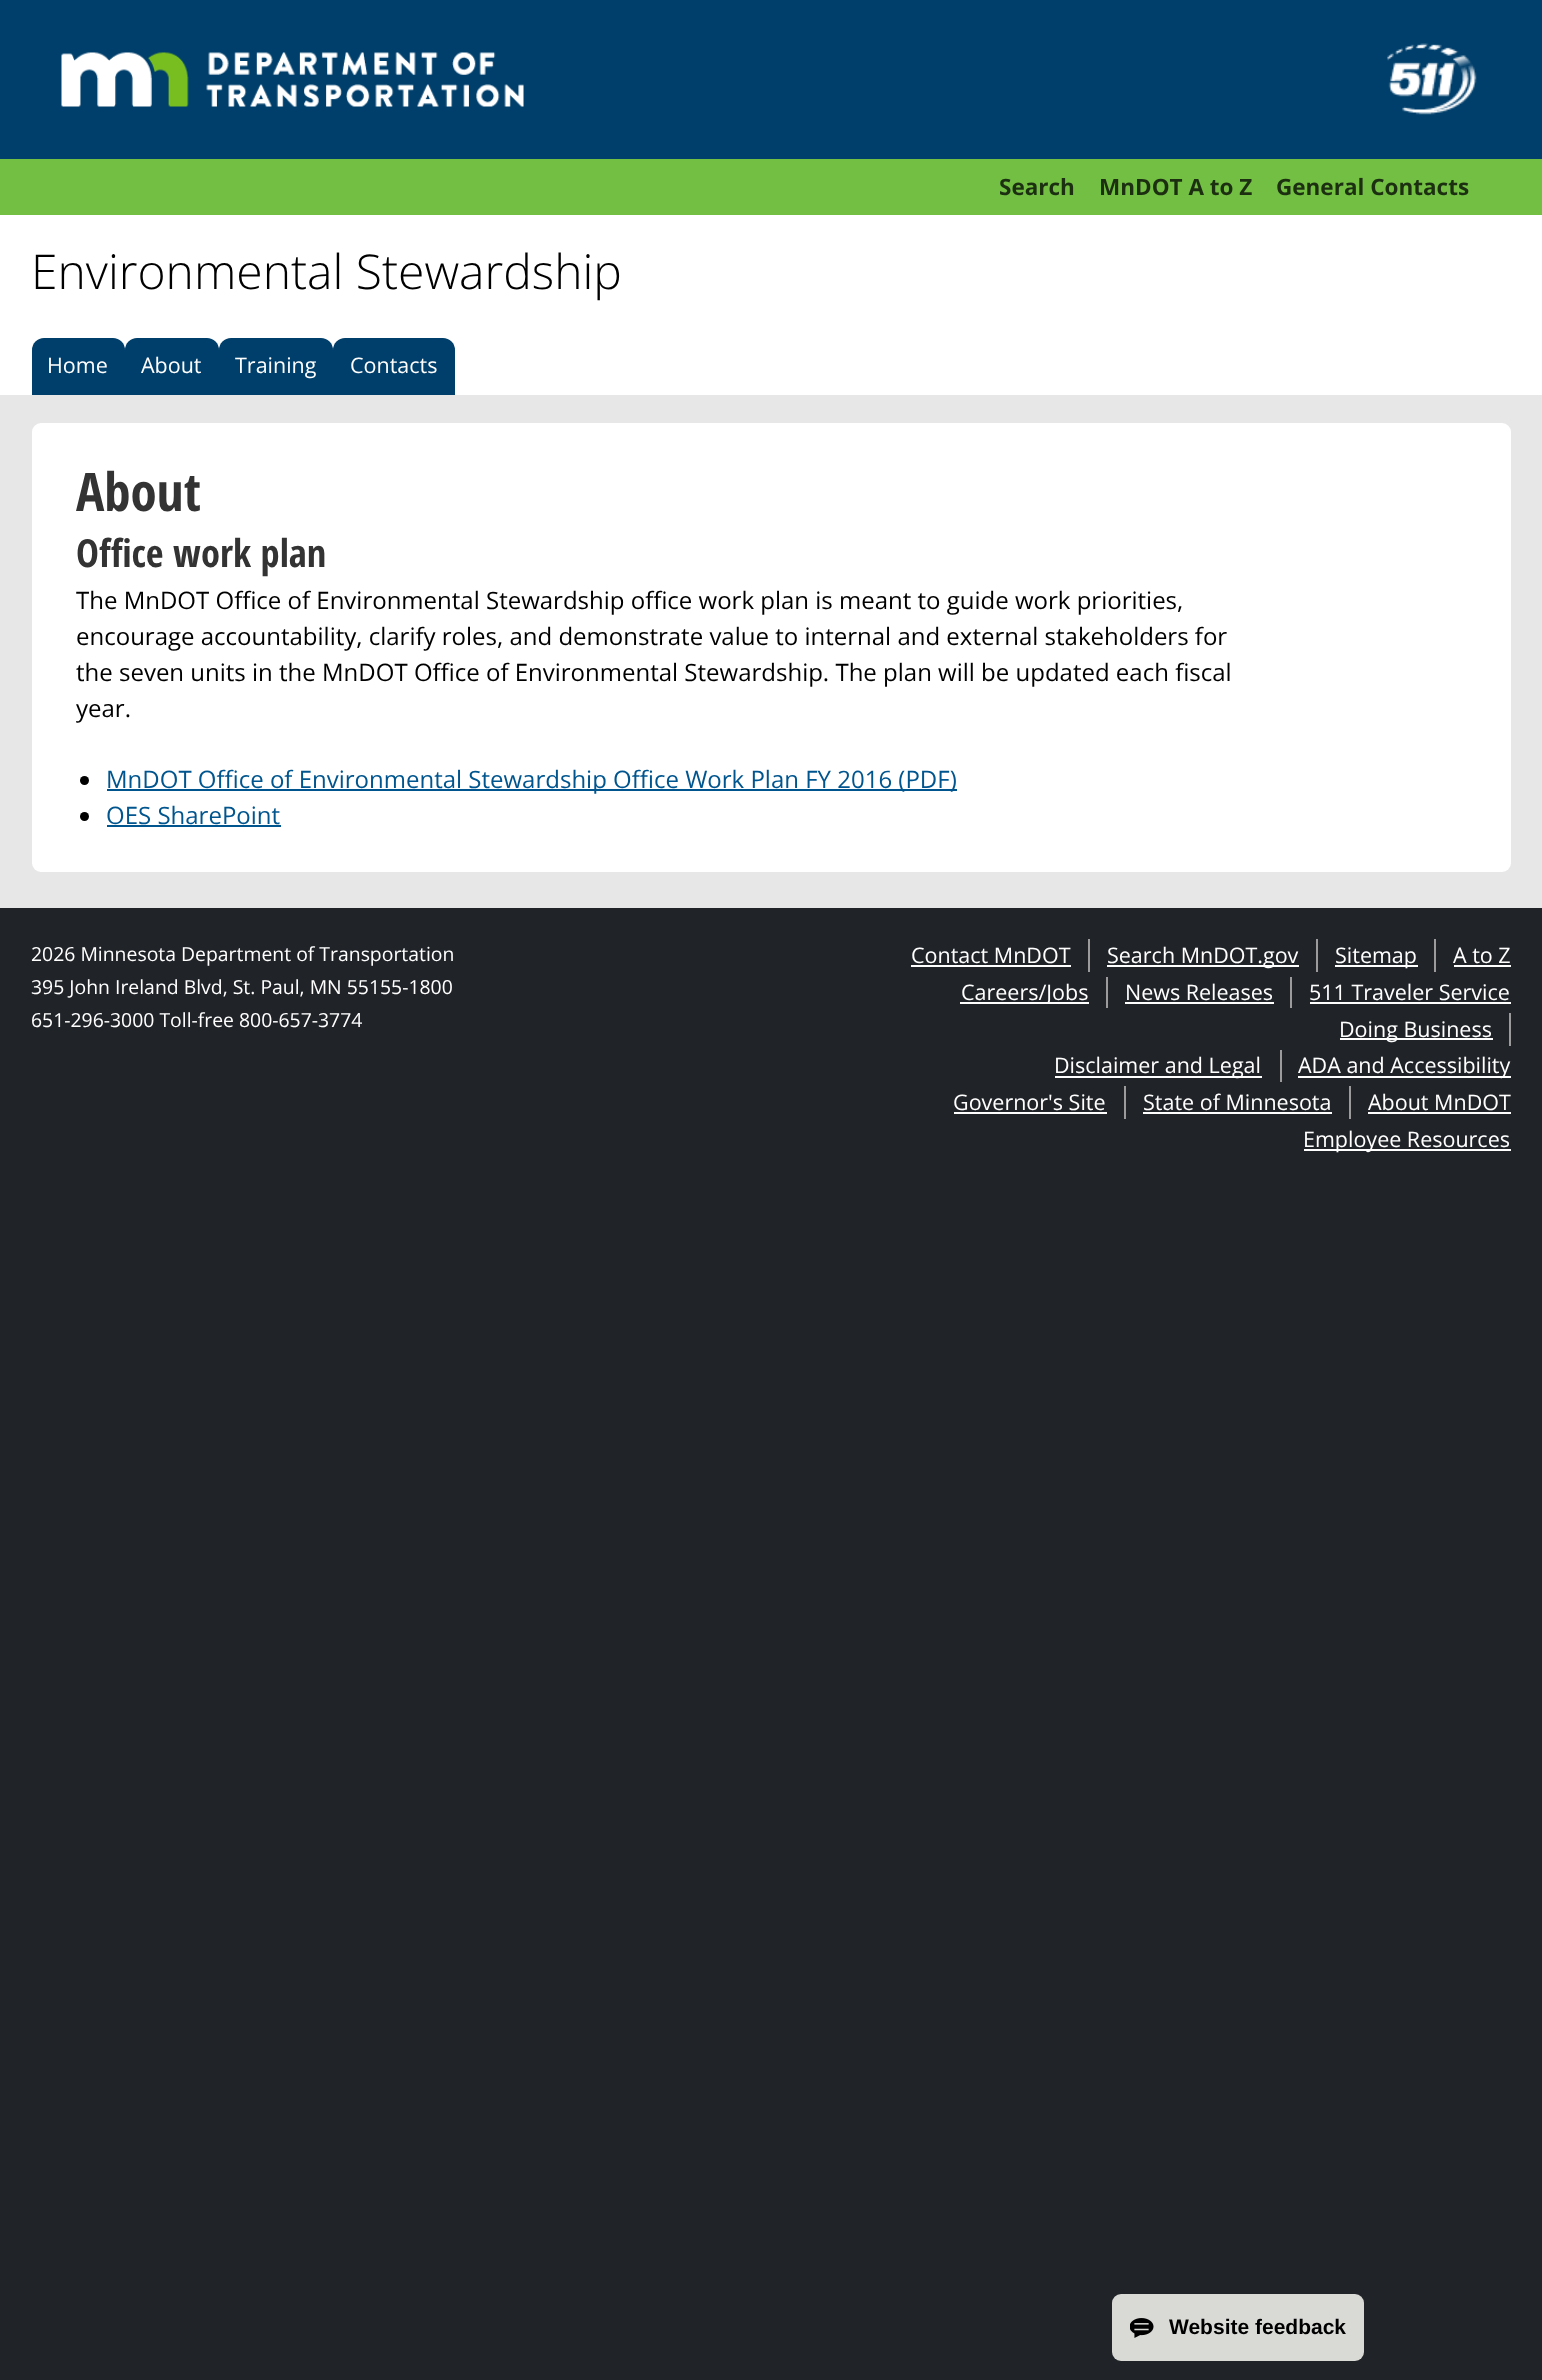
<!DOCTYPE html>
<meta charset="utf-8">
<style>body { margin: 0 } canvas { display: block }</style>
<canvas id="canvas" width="1542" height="2380"></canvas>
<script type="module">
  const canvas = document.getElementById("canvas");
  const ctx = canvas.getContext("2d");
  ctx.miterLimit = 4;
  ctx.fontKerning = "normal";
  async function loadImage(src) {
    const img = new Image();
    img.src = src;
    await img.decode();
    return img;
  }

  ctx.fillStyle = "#202328";
  ctx.fillRect(0, 0, 1542, 2380);
  ctx.fillStyle = "#003f6b";
  ctx.fillRect(0, 0, 1542, 159);
  ctx.drawImage(await loadImage("img1.png"), 61, 52, 463, 55);
  ctx.drawImage(await loadImage("img2.png"), 1387, 43, 90, 72);
  ctx.fillStyle = "#72bf44";
  ctx.fillRect(0, 159, 1542, 56);
  ctx.font = "bold 22.5px Open Sans";
  ctx.fillStyle = "#1c3011";
  ctx.fillText("Search", 999, 195);
  ctx.fillText("MnDOT A to Z", 1099, 195);
  ctx.fillText("General Contacts", 1276, 195);
  ctx.fillStyle = "#ffffff";
  ctx.fillRect(0, 215, 1542, 180);
  ctx.font = "300 48px Open Sans";
  ctx.fillStyle = "#000000";
  ctx.fillText("Environmental Stewardship", 31, 289);
  ctx.fillStyle = "#003f6b";
  ctx.beginPath();
  ctx.roundRect(32, 338, 93, 57, [12, 12, 0, 0]);
  ctx.fill();
  ctx.font = "21.5px Open Sans";
  ctx.fillStyle = "#ffffff";
  ctx.fillText("Home", 47, 373);
  ctx.fillStyle = "#003f6b";
  ctx.beginPath();
  ctx.roundRect(125, 338, 94, 57, [12, 12, 0, 0]);
  ctx.fill();
  ctx.fillStyle = "#ffffff";
  ctx.fillText("About", 141, 373);
  ctx.fillStyle = "#003f6b";
  ctx.beginPath();
  ctx.roundRect(219, 338, 114, 57, [12, 12, 0, 0]);
  ctx.fill();
  ctx.fillStyle = "#ffffff";
  ctx.fillText("Training", 235, 373);
  ctx.fillStyle = "#003f6b";
  ctx.beginPath();
  ctx.roundRect(333, 338, 122, 57, [12, 12, 0, 0]);
  ctx.fill();
  ctx.fillStyle = "#ffffff";
  ctx.fillText("Contacts", 350, 373);
  ctx.fillStyle = "#e7e7e7";
  ctx.fillRect(0, 395, 1542, 513);
  ctx.fillStyle = "#ffffff";
  ctx.beginPath();
  ctx.roundRect(32, 423, 1479, 449, 9);
  ctx.fill();
  ctx.font = "bold 53px Open Sans Condensed";
  ctx.fillStyle = "#343333";
  ctx.fillText("About", 76, 511);
  ctx.font = "bold 38.5px Open Sans Condensed";
  ctx.fillText("Office work plan", 76, 567);
  ctx.font = "24px Open Sans";
  ctx.fillStyle = "#000000";
  ctx.fillText("The MnDOT Office of Environmental Stewardship office work plan is meant to guide work priorities,", 76, 609);
  ctx.fillText("encourage accountability, clarify roles, and demonstrate value to internal and external stakeholders for", 76, 645);
  ctx.fillText("the seven units in the MnDOT Office of Environmental Stewardship. The plan will be updated each fiscal", 76, 681);
  ctx.fillText("year.", 76, 717);
  ctx.beginPath();
  ctx.arc(84.5, 780.5, 4.5, 0, Math.PI * 2);
  ctx.fill();
  ctx.fillStyle = "#00558e";
  ctx.fillRect(107, 789, 850, 2);
  ctx.fillText("MnDOT Office of Environmental Stewardship Office Work Plan FY 2016 (PDF)", 106, 788);
  ctx.fillStyle = "#000000";
  ctx.beginPath();
  ctx.arc(84.5, 816.5, 4.5, 0, Math.PI * 2);
  ctx.fill();
  ctx.fillStyle = "#00558e";
  ctx.fillText("OES SharePoint", 106, 824);
  ctx.fillRect(107, 825, 174, 2);
  ctx.font = "19.4px Open Sans";
  ctx.fillStyle = "#ffffff";
  ctx.fillText("2026 Minnesota Department of Transportation", 31, 961);
  ctx.fillText("395 John Ireland Blvd, St. Paul, MN 55155-1800", 31, 994);
  ctx.fillText("651-296-3000 Toll-free 800-657-3774", 31, 1027);
  ctx.fillStyle = "#9b9b9b";
  ctx.fillRect(1088, 939, 2, 33);
  ctx.font = "21.5px Open Sans";
  ctx.fillStyle = "#ffffff";
  ctx.fillText("Contact MnDOT", 911, 963);
  ctx.fillRect(911, 965, 160, 2);
  ctx.fillStyle = "#9b9b9b";
  ctx.fillRect(1316, 939, 2, 33);
  ctx.fillStyle = "#ffffff";
  ctx.fillRect(1107, 965, 192, 2);
  ctx.fillText("Search MnDOT.gov", 1107, 963);
  ctx.fillStyle = "#9b9b9b";
  ctx.fillRect(1434, 939, 2, 33);
  ctx.fillStyle = "#ffffff";
  ctx.fillRect(1335, 965, 83, 2);
  ctx.fillText("Sitemap", 1335, 963);
  ctx.fillText("A to Z", 1453, 963);
  ctx.fillRect(1454, 965, 57, 2);
  ctx.fillStyle = "#9b9b9b";
  ctx.fillRect(1106, 977, 2, 31);
  ctx.fillStyle = "#ffffff";
  ctx.fillRect(960, 1002, 129, 2);
  ctx.fillText("Careers/Jobs", 961, 1000);
  ctx.fillStyle = "#9b9b9b";
  ctx.fillRect(1290, 977, 2, 31);
  ctx.fillStyle = "#ffffff";
  ctx.fillText("News Releases", 1125, 1000);
  ctx.fillRect(1125, 1002, 149, 2);
  ctx.fillText("511 Traveler Service", 1309, 1000);
  ctx.fillRect(1310, 1002, 201, 2);
  ctx.fillStyle = "#9b9b9b";
  ctx.fillRect(1509, 1013, 2, 33);
  ctx.fillStyle = "#ffffff";
  ctx.fillRect(1340, 1038, 153, 2);
  ctx.fillText("Doing Business", 1339, 1037);
  ctx.fillStyle = "#9b9b9b";
  ctx.fillRect(1280, 1050, 2, 32);
  ctx.fillStyle = "#ffffff";
  ctx.fillRect(1055, 1076, 207, 2);
  ctx.fillText("Disclaimer and Legal", 1054, 1073);
  ctx.fillRect(1298, 1076, 213, 2);
  ctx.fillText("ADA and Accessibility", 1298, 1073);
  ctx.fillStyle = "#9b9b9b";
  ctx.fillRect(1124, 1086, 2, 33);
  ctx.fillStyle = "#ffffff";
  ctx.fillText("Governor's Site", 953, 1110);
  ctx.fillRect(954, 1112, 153, 2);
  ctx.fillStyle = "#9b9b9b";
  ctx.fillRect(1349, 1086, 2, 33);
  ctx.fillStyle = "#ffffff";
  ctx.fillText("State of Minnesota", 1143, 1110);
  ctx.fillRect(1143, 1112, 189, 2);
  ctx.fillText("About MnDOT", 1368, 1110);
  ctx.fillRect(1368, 1112, 143, 2);
  ctx.fillRect(1304, 1149, 207, 2);
  ctx.fillText("Employee Resources", 1303, 1147);
  ctx.fillStyle = "#d9d9d6";
  ctx.beginPath();
  ctx.roundRect(1112, 2294, 252, 67, 9);
  ctx.fill();
  ctx.drawImage(await loadImage("img3.png"), 1130, 2318, 24, 20);
  ctx.font = "bold 21px Liberation Sans";
  ctx.fillStyle = "#000000";
  ctx.fillText("Website feedback", 1169, 2334);
</script>
